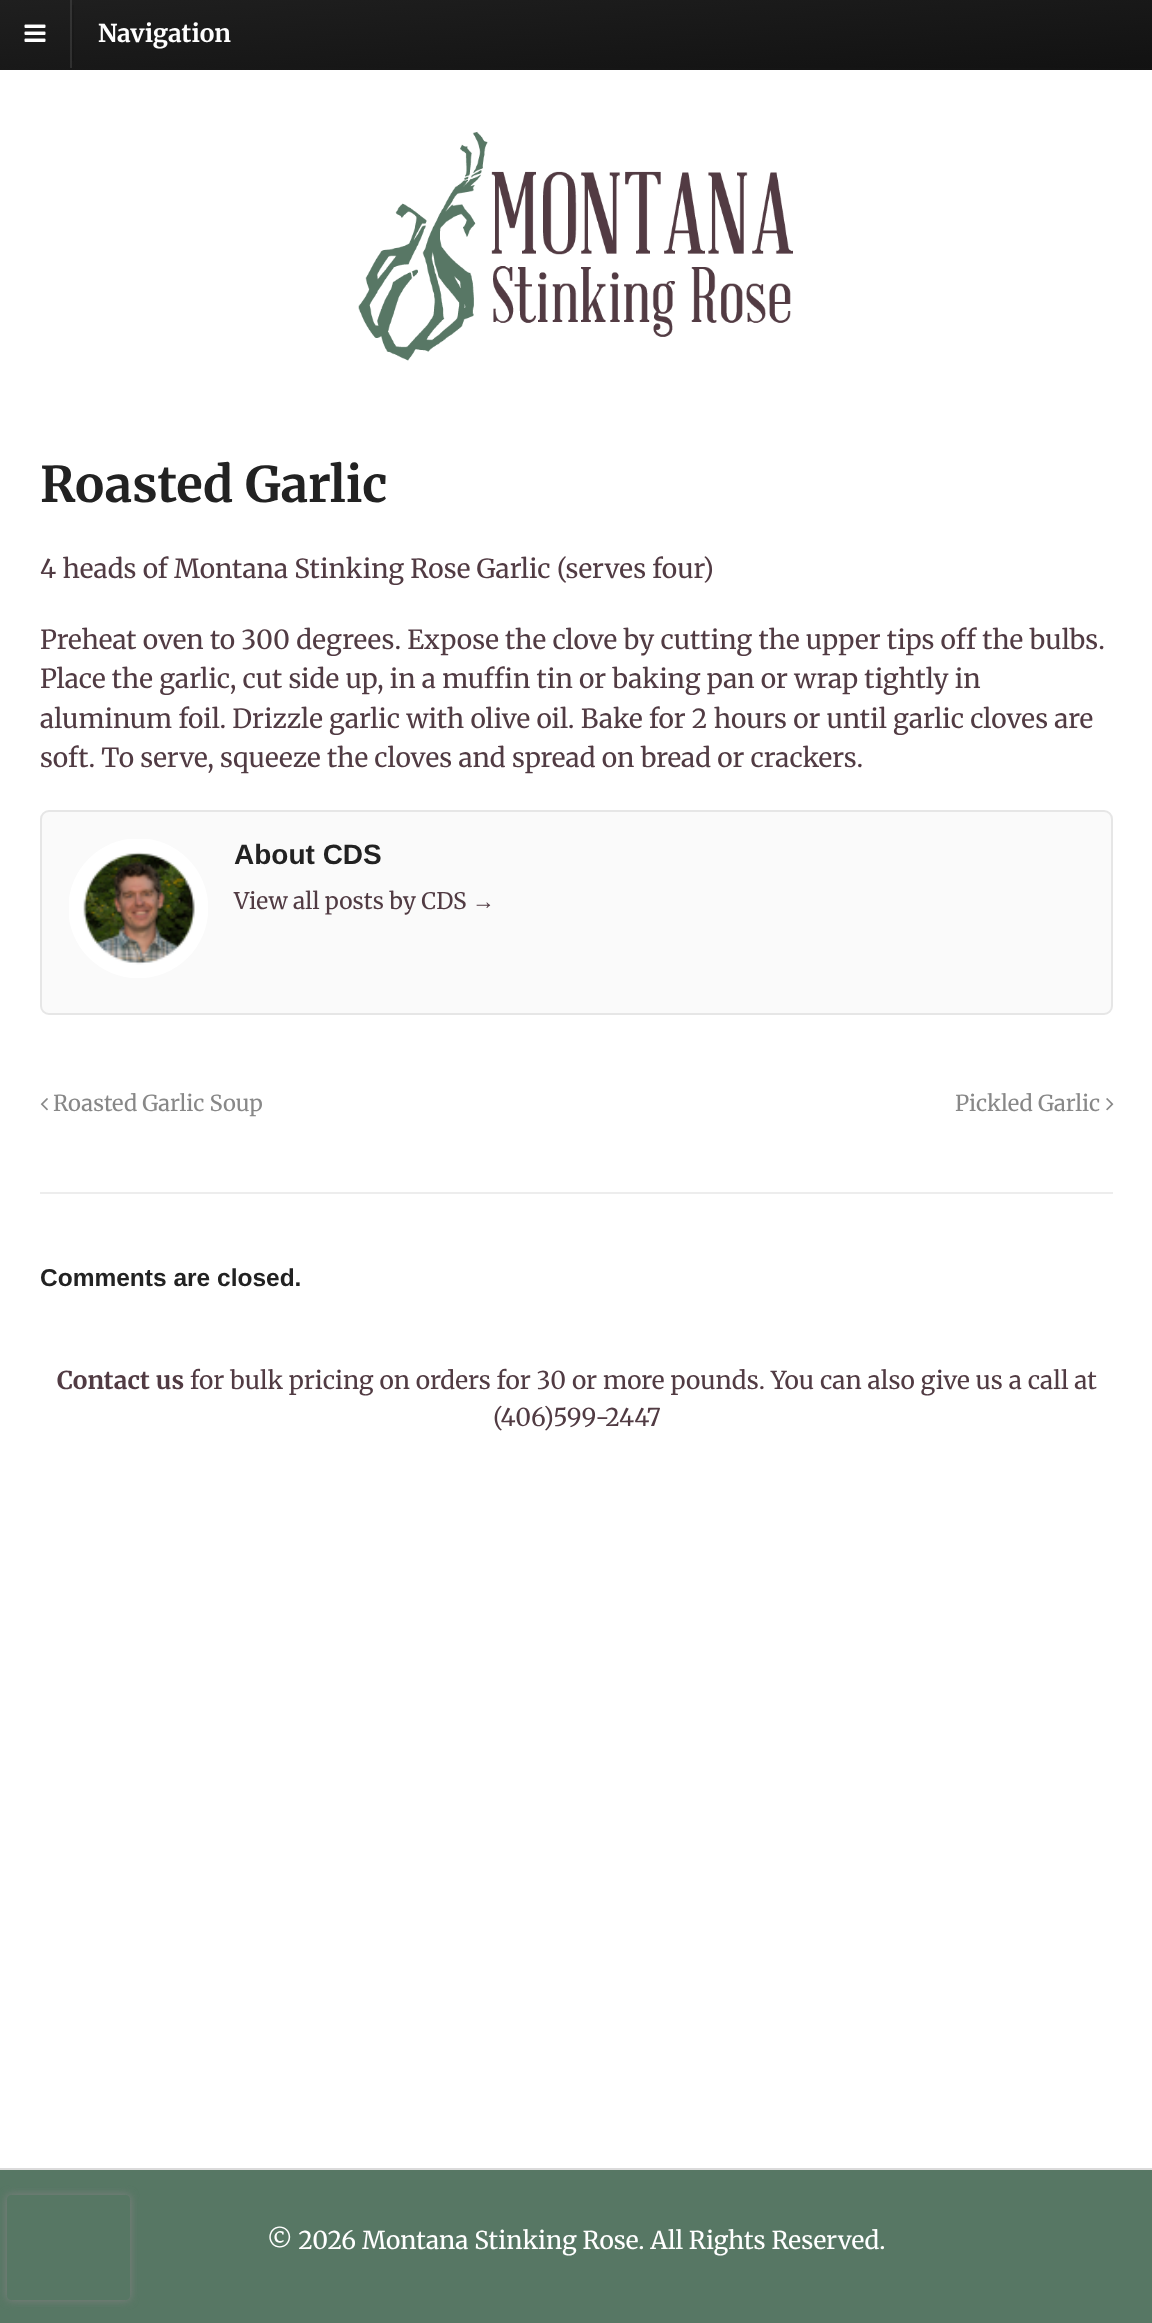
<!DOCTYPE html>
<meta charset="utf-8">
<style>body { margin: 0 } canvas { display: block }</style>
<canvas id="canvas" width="1152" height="2323"></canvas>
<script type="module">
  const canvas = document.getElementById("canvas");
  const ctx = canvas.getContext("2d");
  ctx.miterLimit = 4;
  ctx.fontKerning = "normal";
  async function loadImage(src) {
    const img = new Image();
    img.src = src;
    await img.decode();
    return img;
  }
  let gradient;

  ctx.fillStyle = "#ffffff";
  ctx.fillRect(0, 0, 1152, 2323);
  gradient = ctx.createLinearGradient(573, -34, 581, 102);
  gradient.addColorStop(0, "#1f1f1f");
  gradient.addColorStop(1, "#121212");
  ctx.fillStyle = gradient;
  ctx.fillRect(0, 0, 1152, 68);
  gradient = ctx.createLinearGradient(573, -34, 581, 102);
  gradient.addColorStop(0, "#1c1c1c");
  gradient.addColorStop(1, "#101010");
  ctx.fillStyle = gradient;
  ctx.fillRect(72, 5, 2, 56);
  gradient = ctx.createLinearGradient(573, -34, 581, 102);
  gradient.addColorStop(0, "#353535");
  gradient.addColorStop(1, "#2a2a2a");
  ctx.fillStyle = gradient;
  ctx.fillRect(70, 0, 2, 68);
  gradient = ctx.createLinearGradient(573, 34, 581, 170);
  gradient.addColorStop(0, "#191919");
  gradient.addColorStop(1, "#0e0e0e");
  ctx.fillStyle = gradient;
  ctx.fillRect(0, 68, 1152, 2);
  ctx.drawImage(await loadImage("img1.png"), 24, 24, 22, 18);
  ctx.font = "bold 24.5px Merriweather";
  ctx.fillStyle = "#ffffff";
  ctx.fillText("Navigation", 98, 42);
  ctx.drawImage(await loadImage("img2.png"), 358, 131, 435, 230);
  ctx.font = "bold 49px Merriweather";
  ctx.fillStyle = "#222222";
  ctx.fillText("Roasted Garlic", 40, 502);
  ctx.font = "26.25px Merriweather";
  ctx.fillStyle = "#513b43";
  ctx.fillText("4 heads of Montana Stinking Rose Garlic (serves four)", 40, 578);
  ctx.fillText("Preheat oven to 300 degrees. Expose the clove by cutting the upper tips off the bulbs.", 40, 649);
  ctx.fillText("Place the garlic, cut side up, in a muffin tin or baking pan or wrap tightly in", 40, 688);
  ctx.fillText("aluminum foil. Drizzle garlic with olive oil. Bake for 2 hours or until garlic cloves are", 40, 728);
  ctx.fillText("soft. To serve, squeeze the cloves and spread on bread or crackers.", 40, 767);
  ctx.fillStyle = "#fafafa";
  ctx.beginPath();
  ctx.roundRect(41, 811, 1071, 203, 8);
  ctx.fill();
  ctx.strokeStyle = "#e6e6e6";
  ctx.lineWidth = 2;
  ctx.stroke();
  ctx.drawImage(await loadImage("img3.png"), 69, 839, 139, 139);
  ctx.font = "bold 28px Liberation Sans";
  ctx.fillStyle = "#222222";
  ctx.fillText("About CDS", 234, 864);
  ctx.font = "22.75px Merriweather";
  ctx.fillStyle = "#513b43";
  ctx.fillText("View all posts by CDS", 234, 909);
  ctx.font = "22.75px Liberation Serif";
  ctx.fillText("→", 472, 909);
  ctx.drawImage(await loadImage("img4.png"), 40, 1098, 8, 13);
  ctx.font = "22px Merriweather";
  ctx.fillStyle = "#888888";
  ctx.fillText("Roasted Garlic Soup", 53, 1111);
  ctx.fillText("Pickled Garlic", 955, 1111);
  ctx.drawImage(await loadImage("img5.png"), 1106, 1098, 8, 13);
  ctx.fillStyle = "#ededed";
  ctx.fillRect(40, 1192, 1073, 2);
  ctx.font = "bold 24.5px Liberation Sans";
  ctx.fillStyle = "#222222";
  ctx.fillText("Comments are closed.", 40, 1286);
  ctx.font = "bold 24.5px Merriweather";
  ctx.fillStyle = "#513b43";
  ctx.fillText("Contact us", 57, 1389);
  ctx.font = "24.5px Merriweather";
  ctx.fillText("for bulk pricing on orders for 30 or more pounds. You can also give us a call at", 190, 1389);
  ctx.fillText("(406)599-2447", 493, 1426);
  ctx.fillStyle = "#577764";
  ctx.fillRect(0, 2170, 1152, 153);
  ctx.fillStyle = "#dbdbdb";
  ctx.fillRect(0, 2168, 1152, 2);
  ctx.fillStyle = "#ffffff";
  ctx.fillText("© 2026 Montana Stinking Rose. All Rights Reserved.", 267, 2249);
  ctx.save();
  ctx.beginPath();
  ctx.moveTo(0, 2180);
  ctx.lineTo(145, 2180);
  ctx.lineTo(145, 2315);
  ctx.lineTo(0, 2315);
  ctx.closePath();
  ctx.moveTo(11, 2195);
  ctx.lineTo(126, 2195);
  ctx.bezierCurveTo(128, 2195, 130, 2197, 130, 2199);
  ctx.lineTo(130, 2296);
  ctx.bezierCurveTo(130, 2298, 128, 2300, 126, 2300);
  ctx.lineTo(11, 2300);
  ctx.bezierCurveTo(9, 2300, 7, 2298, 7, 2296);
  ctx.lineTo(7, 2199);
  ctx.bezierCurveTo(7, 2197, 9, 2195, 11, 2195);
  ctx.closePath();
  ctx.clip("evenodd");
  ctx.fillStyle = "#808080";
  ctx.filter = "blur(4.5px)";
  ctx.beginPath();
  ctx.roundRect(7, 2195, 123, 105, 4);
  ctx.fill();
  ctx.filter = "none";
  ctx.restore();
</script>
